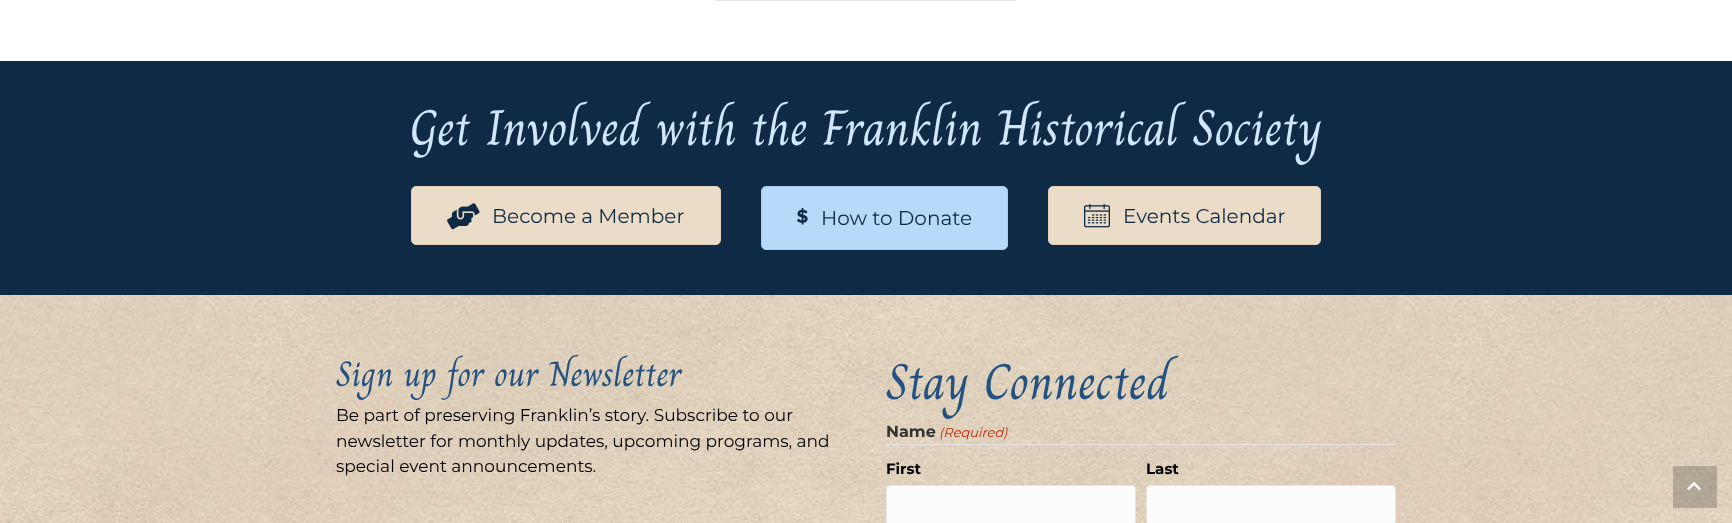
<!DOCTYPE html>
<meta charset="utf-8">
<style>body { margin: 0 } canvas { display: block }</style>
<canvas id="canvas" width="1732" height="523"></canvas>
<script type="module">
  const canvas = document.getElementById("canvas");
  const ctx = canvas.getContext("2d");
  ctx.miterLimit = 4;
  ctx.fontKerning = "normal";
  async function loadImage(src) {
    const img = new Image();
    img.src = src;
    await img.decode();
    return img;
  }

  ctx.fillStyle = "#ffffff";
  ctx.fillRect(0, 0, 1732, 523);
  ctx.strokeStyle = "#e6e6e6";
  ctx.strokeRect(716.5, -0.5, 299, 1);
  ctx.fillStyle = "#0f2a45";
  ctx.fillRect(0, 61, 1732, 234);
  ctx.font = "50px Charm";
  ctx.fillStyle = "#d0e6fb";
  ctx.fillText("Get Involved with the Franklin Historical Society", 409, 145);
  ctx.fillStyle = "#ebdcc8";
  ctx.beginPath();
  ctx.roundRect(411.5, 186.5, 309, 58, 4.5);
  ctx.fill();
  ctx.strokeStyle = "#dfd0bc";
  ctx.stroke();
  ctx.drawImage(await loadImage("img1.png"), 447, 203, 33, 27);
  ctx.font = "20px Montserrat";
  ctx.fillStyle = "#0f2a45";
  ctx.fillText("Become a Member", 492, 223);
  ctx.fillStyle = "#b6dafa";
  ctx.beginPath();
  ctx.roundRect(761.5, 186.5, 246, 63, 4.5);
  ctx.fill();
  ctx.strokeStyle = "#aaceee";
  ctx.stroke();
  ctx.drawImage(await loadImage("img2.png"), 797, 208, 11, 17);
  ctx.fillStyle = "#0f2a45";
  ctx.fillText("How to Donate", 821, 225);
  ctx.fillStyle = "#ebdcc8";
  ctx.beginPath();
  ctx.roundRect(1048.5, 186.5, 272, 58, 4.5);
  ctx.fill();
  ctx.strokeStyle = "#dfd0bc";
  ctx.stroke();
  ctx.drawImage(await loadImage("img3.png"), 1084, 203, 26, 25);
  ctx.fillStyle = "#0f2a45";
  ctx.fillText("Events Calendar", 1123, 223);
  ctx.drawImage(await loadImage("img4.png"), 0, 295, 1732, 228);
  ctx.font = "35px Charm";
  ctx.fillStyle = "#235282";
  ctx.fillText("Sign up for our Newsletter", 336, 386);
  ctx.font = "17px Montserrat";
  ctx.fillStyle = "#000003";
  ctx.fillText("Be part of preserving Franklin’s story. Subscribe to our", 336, 421);
  ctx.fillText("newsletter for monthly updates, upcoming programs, and", 336, 447);
  ctx.fillText("special event announcements.", 336, 472);
  ctx.font = "50px Charm";
  ctx.fillStyle = "#235282";
  ctx.fillText("Stay Connected", 886, 399);
  ctx.fillStyle = "#e5e5e5";
  ctx.fillRect(886, 444, 510, 1);
  ctx.font = "bold 16px Montserrat";
  ctx.fillStyle = "#333333";
  ctx.fillText("Name", 886, 437);
  ctx.font = "italic 13px Montserrat";
  ctx.fillStyle = "#c02b0a";
  ctx.fillText("(Required)", 939, 437);
  ctx.font = "bold 15px Montserrat";
  ctx.fillStyle = "#000003";
  ctx.fillText("First", 886, 474);
  ctx.fillStyle = "#fcfcfc";
  ctx.beginPath();
  ctx.roundRect(886.5, 485.5, 249, 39, 3.5);
  ctx.fill();
  ctx.strokeStyle = "#e6e6e6";
  ctx.stroke();
  ctx.fillStyle = "#000003";
  ctx.fillText("Last", 1146, 474);
  ctx.fillStyle = "#fcfcfc";
  ctx.beginPath();
  ctx.roundRect(1146.5, 485.5, 249, 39, 3.5);
  ctx.fill();
  ctx.stroke();
  ctx.fillStyle = "rgba(0, 0, 0, 0.2)";
  ctx.fillRect(1673, 466, 44, 42);
  ctx.drawImage(await loadImage("img5.png"), 1687, 482, 14, 9);
</script>
